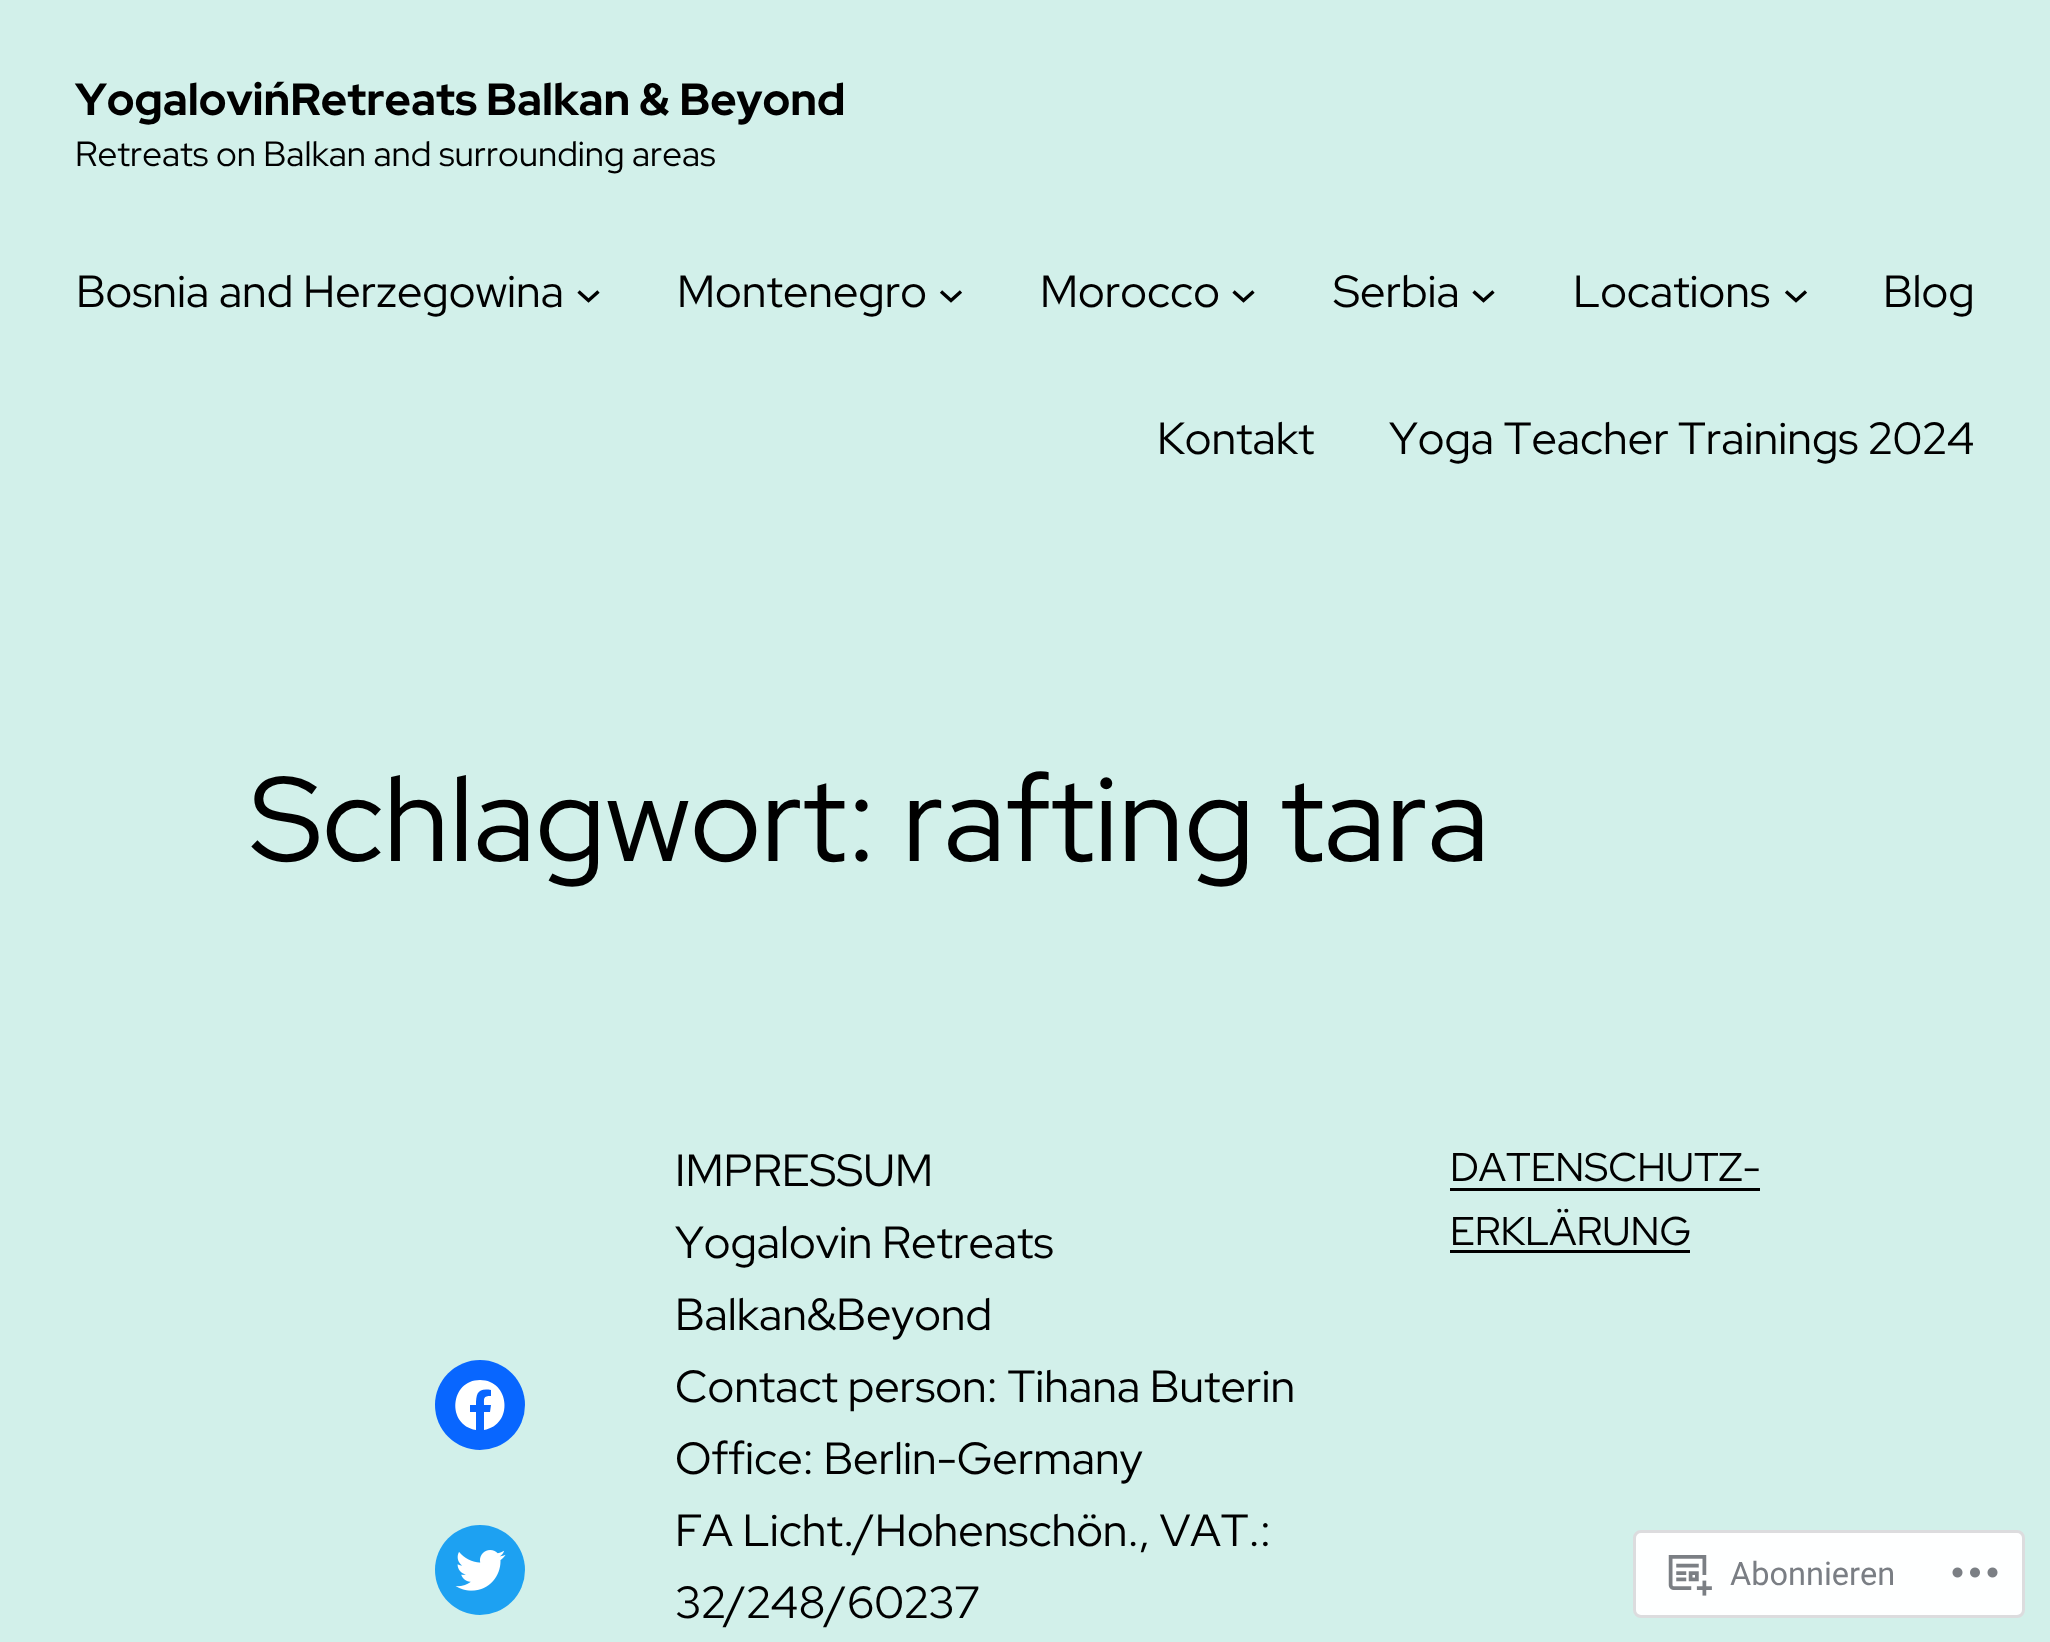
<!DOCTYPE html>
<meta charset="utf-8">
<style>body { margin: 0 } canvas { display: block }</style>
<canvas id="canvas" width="2050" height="1642"></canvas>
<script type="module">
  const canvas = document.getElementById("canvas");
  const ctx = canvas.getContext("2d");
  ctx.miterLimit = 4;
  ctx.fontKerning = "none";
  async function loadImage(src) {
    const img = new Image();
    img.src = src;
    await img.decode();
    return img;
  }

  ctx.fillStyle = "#d2f0ea";
  ctx.fillRect(0, 0, 2050, 1642);
  ctx.font = "bold 45px Red Hat Display";
  ctx.fillStyle = "#000000";
  ctx.fillText("Yogalovin´Retreats", 75, 115);
  ctx.fillText("Balkan & Beyond", 486, 115);
  ctx.font = "35px Red Hat Display";
  ctx.fillText("Retreats on Balkan and surrounding areas", 75, 166);
  ctx.font = "45px Red Hat Display";
  ctx.fillText("Bosnia and Herzegowina", 76, 307);
  ctx.beginPath();
  ctx.moveTo(578.5, 291.5);
  ctx.lineTo(588.5, 300.5);
  ctx.lineTo(598.5, 291.5);
  ctx.strokeStyle = "#000000";
  ctx.lineWidth = 3.4;
  ctx.stroke();
  ctx.fillText("Montenegro", 677, 307);
  ctx.beginPath();
  ctx.moveTo(941, 291.5);
  ctx.lineTo(951, 300.5);
  ctx.lineTo(961, 291.5);
  ctx.stroke();
  ctx.fillText("Morocco", 1040, 307);
  ctx.beginPath();
  ctx.moveTo(1233.5, 291.5);
  ctx.lineTo(1243.5, 300.5);
  ctx.lineTo(1253.5, 291.5);
  ctx.stroke();
  ctx.fillText("Serbia", 1333, 307);
  ctx.beginPath();
  ctx.moveTo(1473.5, 291.5);
  ctx.lineTo(1483.5, 300.5);
  ctx.lineTo(1493.5, 291.5);
  ctx.stroke();
  ctx.fillText("Locations", 1573, 307);
  ctx.beginPath();
  ctx.moveTo(1786, 291.5);
  ctx.lineTo(1796, 300.5);
  ctx.lineTo(1806, 291.5);
  ctx.stroke();
  ctx.fillText("Blog", 1883, 307);
  ctx.fillText("Kontakt", 1157, 454);
  ctx.fillText("Yoga Teacher", 1389, 454);
  ctx.fillText("Trainings 2024", 1678, 454);
  ctx.font = "120px Red Hat Display";
  ctx.fillText("Schlagwort: rafting tara", 250, 861);
  ctx.fillStyle = "#0866ff";
  ctx.beginPath();
  ctx.arc(480, 1405, 45, 0, Math.PI * 2);
  ctx.fill();
  ctx.fillStyle = "#ffffff";
  ctx.beginPath();
  ctx.moveTo(480, 1380);
  ctx.bezierCurveTo(450, 1380, 446, 1425, 476, 1430);
  ctx.lineTo(476, 1412);
  ctx.lineTo(470, 1412);
  ctx.lineTo(470, 1405);
  ctx.lineTo(476, 1405);
  ctx.bezierCurveTo(476, 1393, 478, 1388, 491, 1390);
  ctx.lineTo(491, 1396);
  ctx.bezierCurveTo(483, 1396, 484, 1398, 484, 1405);
  ctx.lineTo(491, 1405);
  ctx.lineTo(490, 1412);
  ctx.lineTo(484, 1412);
  ctx.lineTo(484, 1430);
  ctx.bezierCurveTo(514, 1425, 510, 1380, 480, 1380);
  ctx.closePath();
  ctx.fill();
  ctx.fillStyle = "#1da1f2";
  ctx.beginPath();
  ctx.arc(480, 1570, 45, 0, Math.PI * 2);
  ctx.fill();
  ctx.drawImage(await loadImage("img1.png"), 455, 1550, 51, 41);
  ctx.font = "45px Red Hat Display";
  ctx.fillStyle = "#000000";
  ctx.fillText("IMPRESSUM", 675, 1186);
  ctx.fillText("Yogalovin Retreats", 675, 1258);
  ctx.fillText("Balkan&Beyond", 675, 1330);
  ctx.fillText("Contact person: Tihana Buterin", 675, 1402);
  ctx.fillText("Office: Berlin-Germany", 675, 1474);
  ctx.fillText("FA Licht./Hohenschön., VAT.:", 675, 1546);
  ctx.fillText("32/248/60237", 675, 1618);
  ctx.font = "40px Red Hat Display";
  ctx.fillText("DATENSCHUTZ-", 1450, 1181);
  ctx.fillRect(1450, 1188, 310, 3);
  ctx.fillText("ERKLÄRUNG", 1450, 1245);
  ctx.fillRect(1450, 1250, 240, 3);
  ctx.fillStyle = "#feffff";
  ctx.beginPath();
  ctx.roundRect(1634.5, 1531.5, 389, 85, 6.5);
  ctx.fill();
  ctx.strokeStyle = "#dcdcde";
  ctx.lineWidth = 3;
  ctx.stroke();
  ctx.drawImage(await loadImage("img2.png"), 1668, 1555, 44, 41);
  ctx.font = "32.5px Roboto";
  ctx.fillStyle = "#7a7e84";
  ctx.fillText("Abonnieren", 1730, 1585);
  ctx.drawImage(await loadImage("img3.png"), 1952, 1567, 46, 11);
</script>
